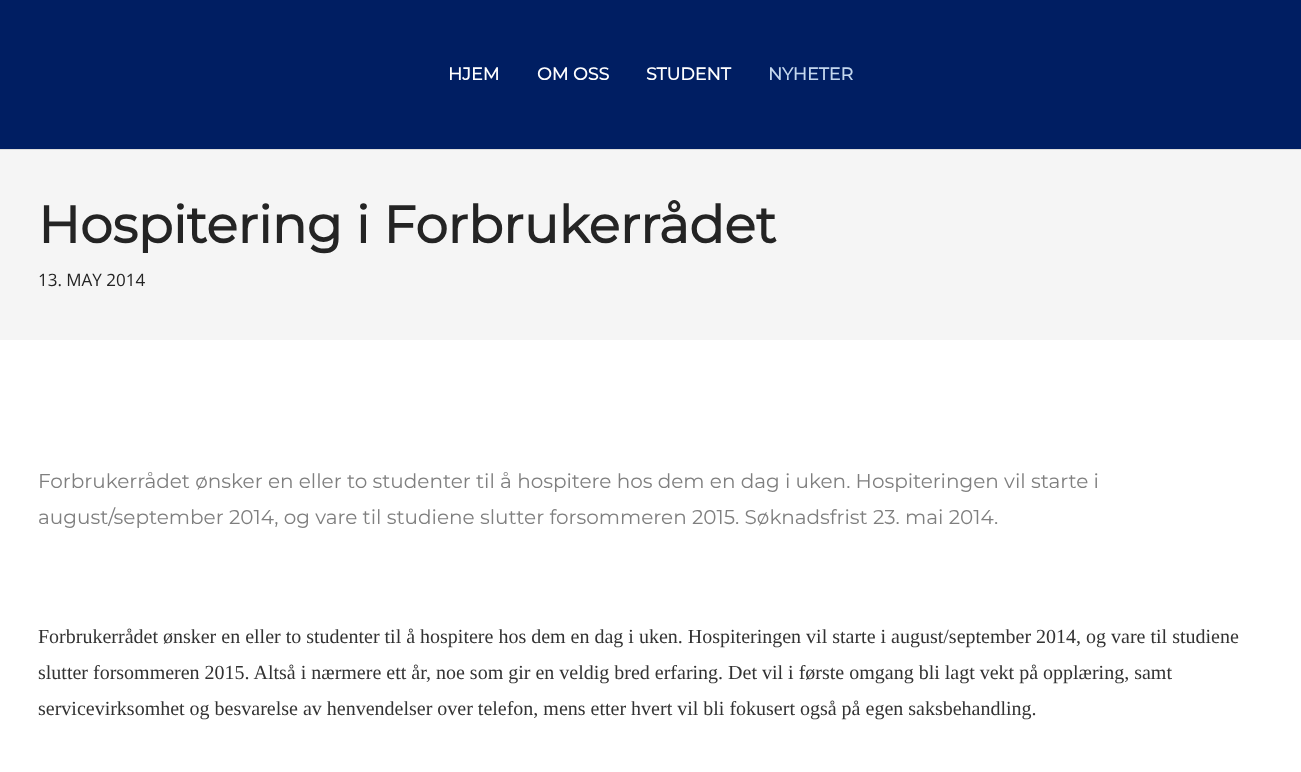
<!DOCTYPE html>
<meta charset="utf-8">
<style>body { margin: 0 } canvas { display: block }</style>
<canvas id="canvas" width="1301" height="772"></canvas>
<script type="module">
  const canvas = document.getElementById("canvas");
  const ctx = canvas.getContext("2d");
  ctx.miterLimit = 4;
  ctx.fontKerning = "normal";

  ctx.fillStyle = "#ffffff";
  ctx.fillRect(0, 0, 1301, 772);
  ctx.fillStyle = "#dddddd";
  ctx.fillRect(0, 149, 1301, 1);
  ctx.fillStyle = "#001e62";
  ctx.fillRect(0, 0, 1301, 149);
  ctx.font = "bold 17.5px Montserrat";
  ctx.fillStyle = "#ffffff";
  ctx.fillText("HJEM", 448, 80);
  ctx.fillText("OM OSS", 537, 80);
  ctx.fillText("STUDENT", 646, 80);
  ctx.fillStyle = "#c3d7ee";
  ctx.fillText("NYHETER", 768, 80);
  ctx.fillStyle = "#f5f5f5";
  ctx.fillRect(0, 150, 1301, 190);
  ctx.font = "bold 51.75px Montserrat";
  ctx.fillStyle = "#242424";
  ctx.fillText("Hospitering i Forbrukerrådet", 38, 243);
  ctx.font = "17px Open Sans";
  ctx.fillText("13. MAY 2014", 38, 286);
  ctx.font = "100 20px Montserrat";
  ctx.fillStyle = "#7f7f7f";
  ctx.fillText("Forbrukerrådet ønsker en eller to studenter til å hospitere hos dem en dag i uken. Hospiteringen vil starte i", 38, 488);
  ctx.fillText("august/september 2014, og vare til studiene slutter forsommeren 2015. Søknadsfrist 23. mai 2014.", 38, 524);
  ctx.font = "20px Liberation Serif";
  ctx.fillStyle = "#333333";
  ctx.fillText("Forbrukerrådet ønsker en eller to studenter til å hospitere hos dem en dag i uken. Hospiteringen vil starte i august/september 2014, og vare til studiene", 38, 643);
  ctx.fillText("slutter forsommeren 2015. Altså i nærmere ett år, noe som gir en veldig bred erfaring. Det vil i første omgang bli lagt vekt på opplæring, samt", 38, 679);
  ctx.fillText("servicevirksomhet og besvarelse av henvendelser over telefon, mens etter hvert vil bli fokusert også på egen saksbehandling.", 38, 715);
</script>
